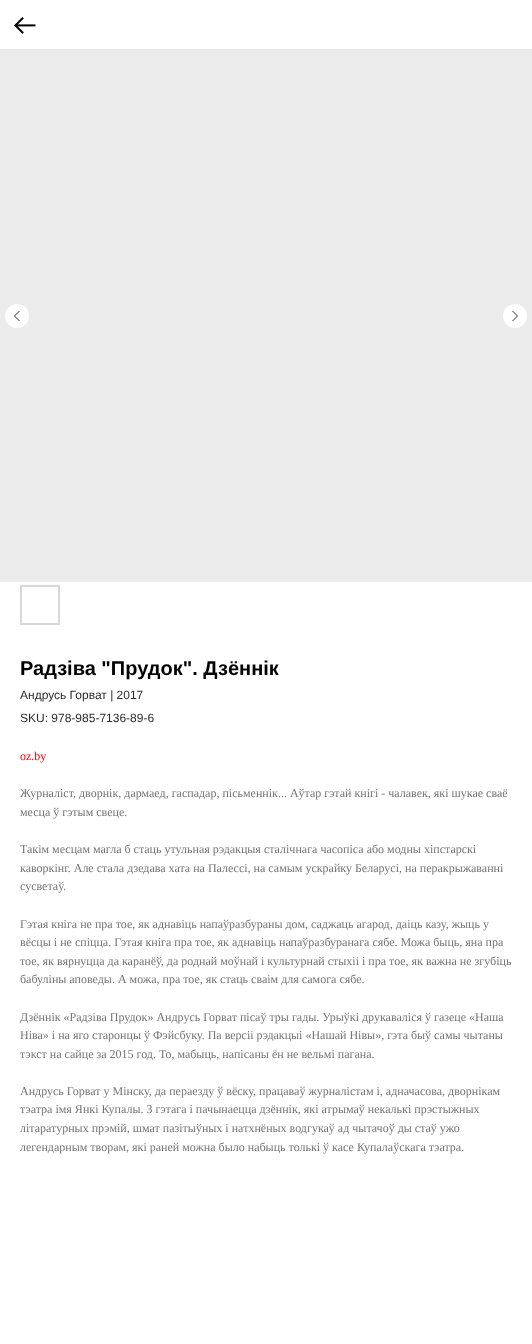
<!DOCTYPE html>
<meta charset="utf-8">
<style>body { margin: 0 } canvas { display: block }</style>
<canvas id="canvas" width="532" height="1344"></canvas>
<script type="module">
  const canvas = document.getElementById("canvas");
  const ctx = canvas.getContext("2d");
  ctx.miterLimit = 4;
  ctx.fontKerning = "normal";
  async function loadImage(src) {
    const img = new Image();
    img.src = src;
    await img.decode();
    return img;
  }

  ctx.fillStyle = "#ffffff";
  ctx.fillRect(0, 0, 532, 1344);
  ctx.fillStyle = "#e6e6e6";
  ctx.fillRect(0, 49, 532, 1);
  ctx.drawImage(await loadImage("img1.png"), 14, 17, 22, 17);
  ctx.fillStyle = "#ebebeb";
  ctx.fillRect(0, 50, 532, 532);
  ctx.fillStyle = "#ffffff";
  ctx.beginPath();
  ctx.arc(17, 316, 12, 0, Math.PI * 2);
  ctx.fill();
  ctx.beginPath();
  ctx.moveTo(19.5, 321);
  ctx.lineTo(14.5, 316);
  ctx.lineTo(19.5, 311);
  ctx.strokeStyle = "#000000";
  ctx.lineWidth = 0.8;
  ctx.stroke();
  ctx.beginPath();
  ctx.arc(515, 316, 12, 0, Math.PI * 2);
  ctx.fill();
  ctx.beginPath();
  ctx.moveTo(512.5, 311);
  ctx.lineTo(517.5, 316);
  ctx.lineTo(512.5, 321);
  ctx.stroke();
  ctx.strokeStyle = "#d9d9d9";
  ctx.lineWidth = 2;
  ctx.strokeRect(21, 586, 38, 38);
  ctx.font = "bold 20px Liberation Sans";
  ctx.fillStyle = "#000000";
  ctx.fillText("Радзіва \"Прудок\". Дзённік", 20, 675);
  ctx.font = "12px Liberation Sans";
  ctx.fillStyle = "#2b2b2b";
  ctx.fillText("Андрусь Горват | 2017", 20, 699);
  ctx.fillText("SKU: 978-985-7136-89-6", 20, 722);
  ctx.font = "12px Liberation Serif";
  ctx.fillStyle = "#ff0000";
  ctx.fillText("oz.by", 20, 760);
  ctx.fillStyle = "#757575";
  ctx.fillText("Журналіст, дворнік, дармаед, гаспадар, пісьменнік... Аўтар гэтай кнігі - чалавек, які шукае сваё", 20, 797);
  ctx.fillText("месца ў гэтым свеце.", 20, 816);
  ctx.fillText("Такім месцам магла б стаць утульная рэдакцыя сталічнага часопіса або модны хіпстарскі", 20, 853);
  ctx.fillText("каворкінг. Але стала дзедава хата на Палессі, на самым ускрайку Беларусі, на перакрыжаванні", 20, 872);
  ctx.fillText("сусветаў.", 20, 890);
  ctx.fillText("Гэтая кніга не пра тое, як аднавіць напаўразбураны дом, саджаць агарод, даіць казу, жыць у", 20, 928);
  ctx.fillText("вёсцы і не спіцца. Гэтая кніга пра тое, як аднавіць напаўразбуранага сябе. Можа быць, яна пра", 20, 946);
  ctx.fillText("тое, як вярнуцца да каранёў, да роднай моўнай і культурнай стыхіі і пра тое, як важна не згубіць", 20, 965);
  ctx.fillText("бабуліны аповеды. А можа, пра тое, як стаць сваім для самога сябе.", 20, 983);
  ctx.fillText("Дзённік «Радзіва Прудок» Андрусь Горват пісаў тры гады. Урыўкі друкаваліся ў газеце «Наша", 20, 1021);
  ctx.fillText("Ніва» і на яго старонцы ў Фэйсбуку. Па версіі рэдакцыі «Нашай Нівы», гэта быў самы чытаны", 20, 1039);
  ctx.fillText("тэкст на сайце за 2015 год. То, мабыць, напісаны ён не вельмі пагана.", 20, 1058);
  ctx.fillText("Андрусь Горват у Мінску, да пераезду ў вёску, працаваў журналістам і, адначасова, дворнікам", 20, 1095);
  ctx.fillText("тэатра імя Янкі Купалы. З гэтага і пачынаецца дзённік, які атрымаў некалькі прэстыжных", 20, 1113);
  ctx.fillText("літаратурных прэмій, шмат пазітыўных і натхнёных водгукаў ад чытачоў ды стаў ужо", 20, 1132);
  ctx.fillText("легендарным творам, які раней можна было набыць толькі ў касе Купалаўскага тэатра.", 20, 1151);
</script>
